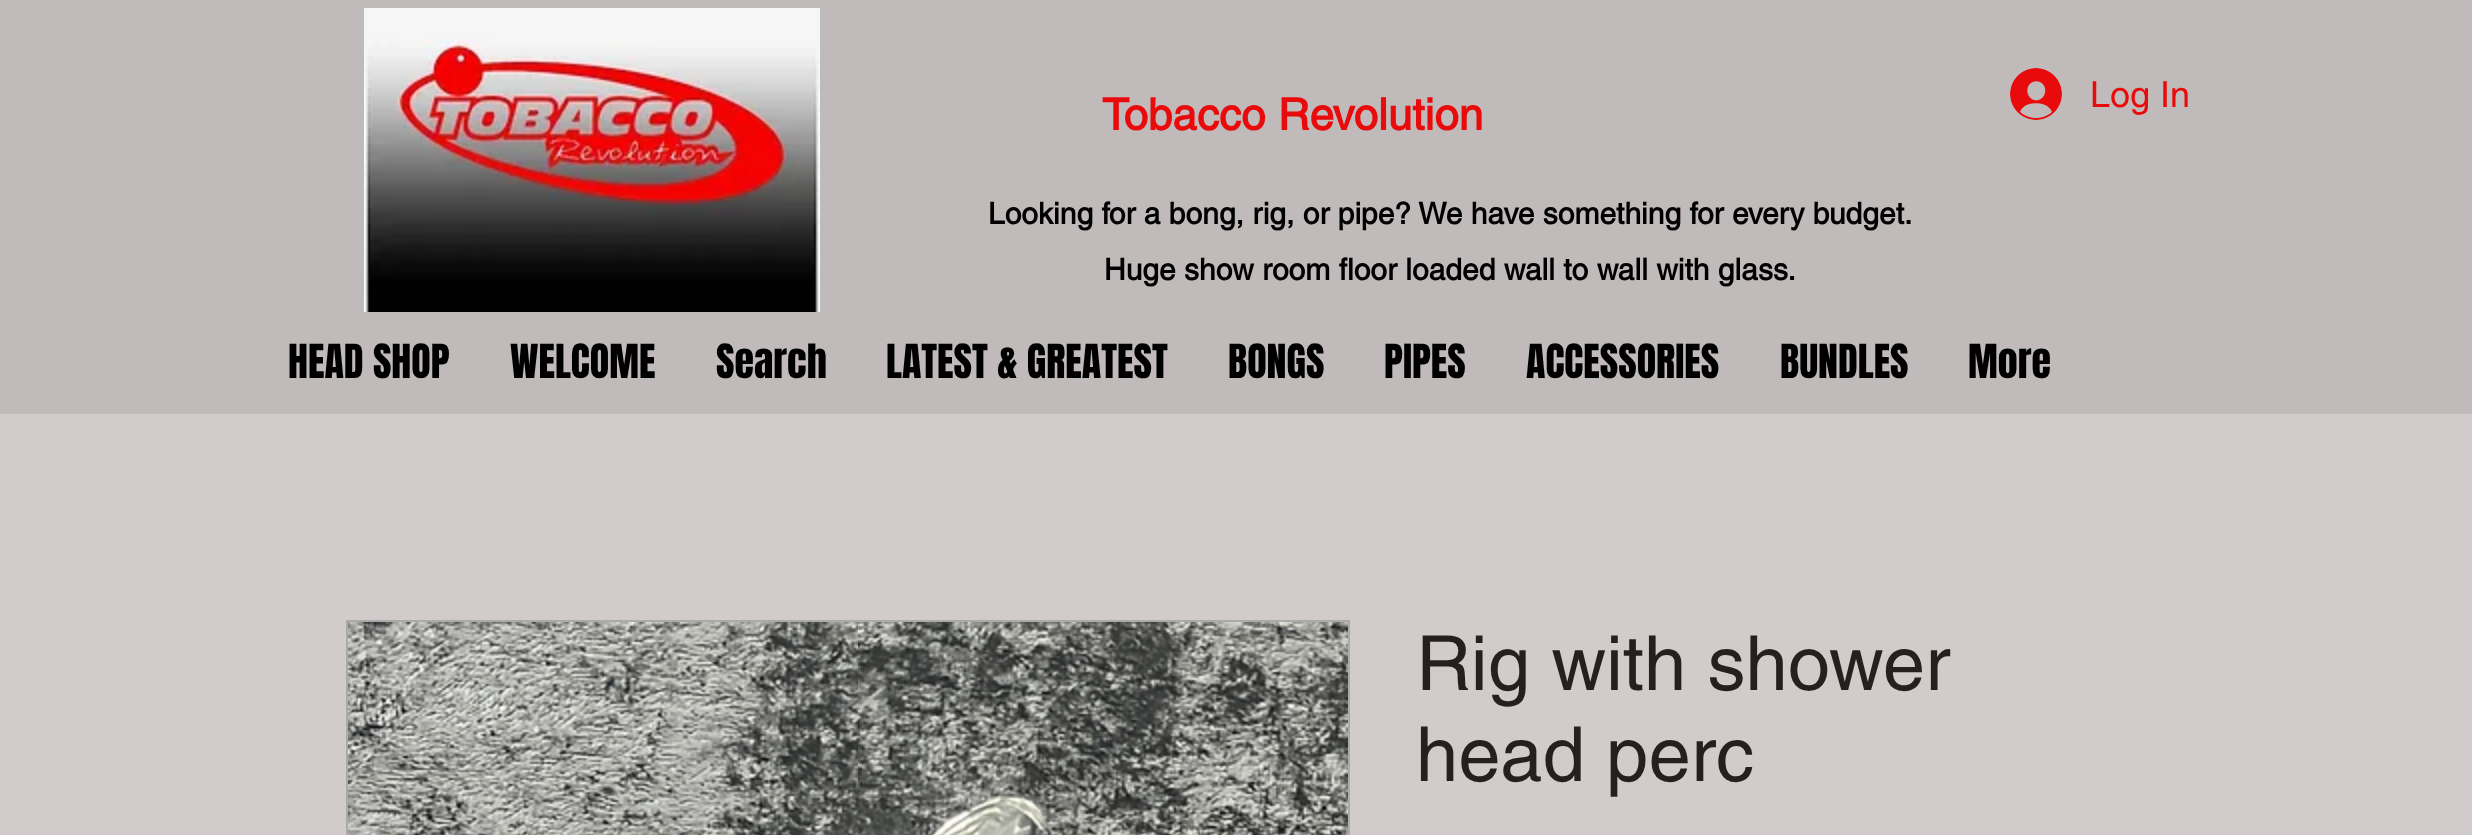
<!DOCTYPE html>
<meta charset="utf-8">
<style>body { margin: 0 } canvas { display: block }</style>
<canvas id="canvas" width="2472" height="835"></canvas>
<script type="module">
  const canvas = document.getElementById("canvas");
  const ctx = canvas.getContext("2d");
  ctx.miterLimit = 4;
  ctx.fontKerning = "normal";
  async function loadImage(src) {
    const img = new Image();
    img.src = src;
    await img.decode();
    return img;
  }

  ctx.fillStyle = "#c0baba";
  ctx.fillRect(0, 0, 2472, 835);
  ctx.drawImage(await loadImage("img1.png"), 364, 8, 456, 304);
  ctx.font = "bold 44px helvetica";
  ctx.fillStyle = "#e90a0b";
  ctx.fillText("Tobacco Revolution", 1102, 130);
  ctx.drawImage(await loadImage("img2.png"), 2010, 68, 52, 52);
  ctx.font = "36px helvetica";
  ctx.fillText("Log In", 2090, 107);
  ctx.font = "bold 30px helvetica";
  ctx.fillStyle = "#000000";
  ctx.fillText("Looking for a bong, rig, or pipe? We have something for every budget.", 988, 224);
  ctx.fillText("Huge show room floor loaded wall to wall with glass.", 1104, 280);
  ctx.font = "40px Anton";
  ctx.fillText("HEAD SHOP", 288, 378);
  ctx.fillText("WELCOME", 510, 378);
  ctx.fillText("Search", 716, 378);
  ctx.fillText("LATEST & GREATEST", 886, 378);
  ctx.fillText("BONGS", 1228, 378);
  ctx.fillText("PIPES", 1384, 378);
  ctx.fillText("ACCESSORIES", 1526, 378);
  ctx.fillText("BUNDLES", 1780, 378);
  ctx.fillText("More", 1968, 378);
  ctx.fillStyle = "#d1cbcb";
  ctx.fillRect(0, 414, 2472, 421);
  ctx.strokeStyle = "#afa8a8";
  ctx.lineWidth = 2;
  ctx.strokeRect(347, 621, 1002, 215);
  ctx.drawImage(await loadImage("img3.png"), 348, 622, 1000, 213);
  ctx.font = "76px helvetica";
  ctx.fillStyle = "#271e1e";
  ctx.fillText("Rig with shower", 1416, 690);
  ctx.fillText("head perc", 1416, 781);
</script>
